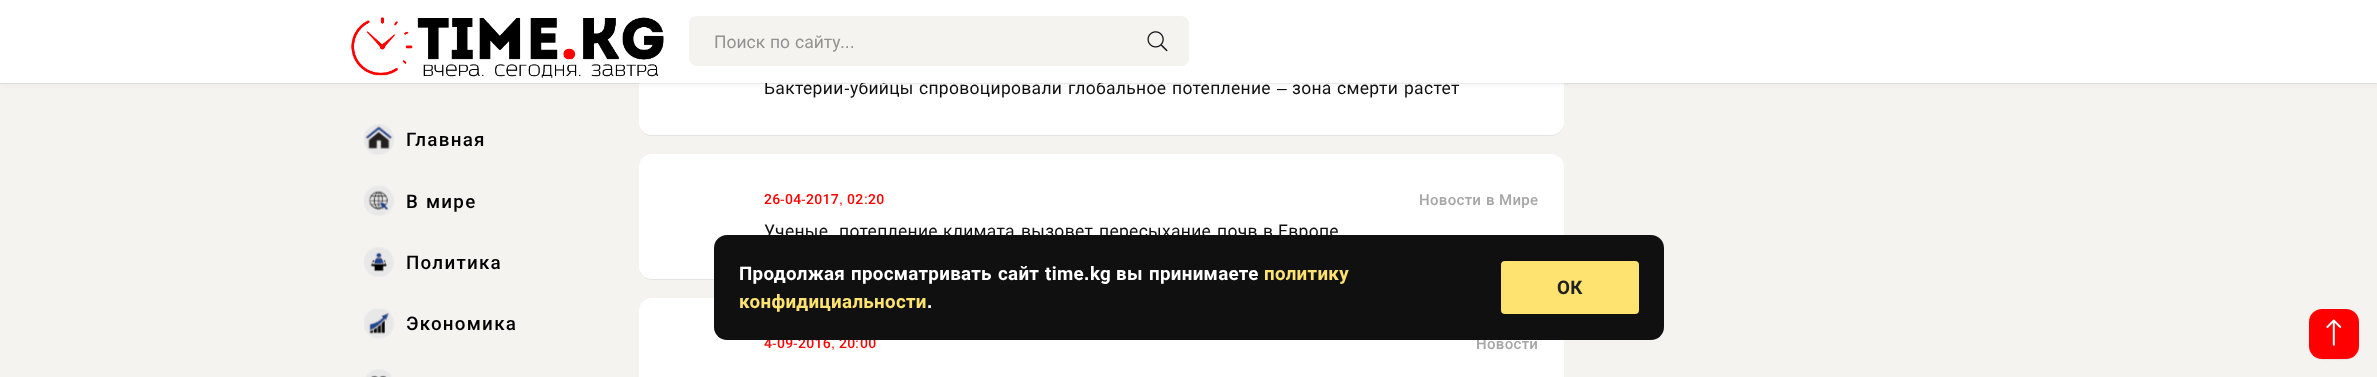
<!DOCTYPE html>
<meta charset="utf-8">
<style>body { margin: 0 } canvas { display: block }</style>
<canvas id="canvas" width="2377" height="377"></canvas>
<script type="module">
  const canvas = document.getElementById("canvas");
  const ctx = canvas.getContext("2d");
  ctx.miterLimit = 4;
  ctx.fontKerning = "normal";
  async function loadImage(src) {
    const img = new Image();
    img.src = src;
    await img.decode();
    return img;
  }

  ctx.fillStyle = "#f4f3f0";
  ctx.fillRect(0, 0, 2377, 377);
  ctx.fillStyle = "#e5e4e1";
  ctx.beginPath();
  ctx.moveTo(640, 128);
  ctx.bezierCurveTo(642, 133, 646, 136, 652, 136);
  ctx.lineTo(1551, 136);
  ctx.bezierCurveTo(1558, 136, 1564, 130, 1564, 123);
  ctx.lineTo(1564, 21);
  ctx.lineTo(1564, 122);
  ctx.bezierCurveTo(1564, 129, 1558, 135, 1551, 135);
  ctx.lineTo(651, 135);
  ctx.bezierCurveTo(646, 135, 642, 132, 640, 128);
  ctx.closePath();
  ctx.fill();
  ctx.fillStyle = "#ffffff";
  ctx.beginPath();
  ctx.roundRect(639, 10, 925, 125, 13);
  ctx.fill();
  ctx.fillStyle = "rgba(56, 50, 48, 0.08)";
  ctx.beginPath();
  ctx.moveTo(0, 82);
  ctx.lineTo(0, 84);
  ctx.lineTo(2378, 84);
  ctx.lineTo(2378, 1);
  ctx.lineTo(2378, 82);
  ctx.closePath();
  ctx.fill();
  ctx.fillStyle = "rgba(56, 50, 48, 0.05)";
  ctx.filter = "blur(2.5px)";
  ctx.beginPath();
  ctx.rect(0, 3, 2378, 82);
  ctx.fill();
  ctx.filter = "none";
  ctx.letterSpacing = "0.3px";
  ctx.font = "17.5px Roboto";
  ctx.fillStyle = "#0f0f10";
  ctx.fillText("Бактерии", 764, 94);
  ctx.fillText("убийцы", 850, 94);
  ctx.fillText("глобальное", 1068, 94);
  ctx.fillStyle = "#ffffff";
  ctx.fillRect(0, 0, 2377, 83);
  ctx.drawImage(await loadImage("img1.png"), 351, 17, 313, 62);
  ctx.fillStyle = "#f4f3f0";
  ctx.beginPath();
  ctx.roundRect(689, 16, 500, 50, 8);
  ctx.fill();
  ctx.letterSpacing = "0px";
  ctx.fillStyle = "#929290";
  ctx.fillText("Поиск", 714, 48);
  ctx.fillText("по", 770, 48);
  ctx.fillText("сайту", 795, 48);
  ctx.font = "17.5px Liberation Sans";
  ctx.fillText("...", 840, 48);
  ctx.drawImage(await loadImage("img2.png"), 1147, 31, 21, 21);
  ctx.drawImage(await loadImage("img3.png"), 364, 124, 30, 31);
  ctx.letterSpacing = "1.25px";
  ctx.font = "500 18.75px Roboto";
  ctx.fillStyle = "#000000";
  ctx.fillText("Главная", 406, 146);
  ctx.drawImage(await loadImage("img4.png"), 364, 185, 30, 31);
  ctx.fillText("В", 406, 208);
  ctx.fillText("мире", 426, 208);
  ctx.drawImage(await loadImage("img5.png"), 364, 247, 30, 30);
  ctx.fillText("Политика", 406, 269);
  ctx.drawImage(await loadImage("img6.png"), 364, 308, 30, 31);
  ctx.fillText("Экономика", 406, 330);
  ctx.drawImage(await loadImage("img7.png"), 366, 369, 26, 8);
  ctx.letterSpacing = "0.3px";
  ctx.font = "17.5px Liberation Sans";
  ctx.fillStyle = "#0f0f10";
  ctx.fillText("-", 844, 94);
  ctx.font = "17.5px Roboto";
  ctx.fillText("спровоцировали", 919, 94);
  ctx.fillText("потепление", 1172, 94);
  ctx.font = "17.5px Liberation Sans";
  ctx.fillText("–", 1277, 94);
  ctx.font = "17.5px Roboto";
  ctx.fillText("зона", 1292, 94);
  ctx.fillText("смерти", 1337, 94);
  ctx.fillText("растет", 1404, 94);
  ctx.fillStyle = "#e5e4e1";
  ctx.beginPath();
  ctx.moveTo(639, 270);
  ctx.bezierCurveTo(641, 276, 646, 280, 652, 280);
  ctx.lineTo(1551, 280);
  ctx.bezierCurveTo(1558, 280, 1564, 274, 1564, 267);
  ctx.lineTo(1564, 165);
  ctx.lineTo(1564, 266);
  ctx.bezierCurveTo(1564, 273, 1558, 279, 1551, 279);
  ctx.lineTo(651, 279);
  ctx.bezierCurveTo(646, 279, 641, 275, 639, 270);
  ctx.closePath();
  ctx.fill();
  ctx.fillStyle = "#ffffff";
  ctx.beginPath();
  ctx.roundRect(639, 154, 925, 125, 13);
  ctx.fill();
  ctx.font = "500 14px Roboto";
  ctx.fillStyle = "#ff0000";
  ctx.fillText("26", 764, 204);
  ctx.font = "14px Liberation Sans";
  ctx.fillText("-", 780, 204);
  ctx.font = "500 14px Roboto";
  ctx.fillText("04", 785, 204);
  ctx.font = "14px Liberation Sans";
  ctx.fillText("-", 801, 204);
  ctx.font = "500 14px Roboto";
  ctx.fillText("2017", 806, 204);
  ctx.fillText("02", 847, 204);
  ctx.font = "14px Liberation Sans";
  ctx.fillText(":", 864, 204);
  ctx.font = "500 14px Roboto";
  ctx.fillText("20", 868, 204);
  ctx.font = "14px Liberation Sans";
  ctx.fillText(",", 839, 204);
  ctx.font = "500 15px Roboto";
  ctx.fillStyle = "#a6a6a6";
  ctx.fillText("Новости", 1419, 205);
  ctx.fillText("в", 1486, 205);
  ctx.fillText("Мире", 1499, 205);
  ctx.font = "17.5px Roboto";
  ctx.fillStyle = "#0f0f10";
  ctx.fillText("Ученые", 764, 237);
  ctx.fillText("потепление", 839, 237);
  ctx.fillText("климата", 943, 237);
  ctx.fillText("вызовет", 1021, 237);
  ctx.fillText("пересыхание", 1099, 237);
  ctx.fillText("почв", 1217, 237);
  ctx.fillText("в", 1263, 237);
  ctx.fillText("Европе", 1278, 237);
  ctx.fillStyle = "#ffffff";
  ctx.beginPath();
  ctx.roundRect(639, 298, 925, 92, 13);
  ctx.fill();
  ctx.font = "500 14px Roboto";
  ctx.fillStyle = "#ff0000";
  ctx.fillText("4", 764, 348);
  ctx.font = "14px Liberation Sans";
  ctx.fillText("-", 772, 348);
  ctx.font = "500 14px Roboto";
  ctx.fillText("09", 777, 348);
  ctx.font = "14px Liberation Sans";
  ctx.fillText("-", 793, 348);
  ctx.font = "500 14px Roboto";
  ctx.fillText("2016", 798, 348);
  ctx.fillText("20", 839, 348);
  ctx.font = "14px Liberation Sans";
  ctx.fillText(":", 855, 348);
  ctx.font = "500 14px Roboto";
  ctx.fillText("00", 860, 348);
  ctx.font = "14px Liberation Sans";
  ctx.fillText(",", 831, 348);
  ctx.font = "500 15px Roboto";
  ctx.fillStyle = "#a6a6a6";
  ctx.fillText("Новости", 1476, 349);
  ctx.fillStyle = "#101010";
  ctx.beginPath();
  ctx.roundRect(714, 235, 950, 105, 13);
  ctx.fill();
  ctx.font = "bold 18.75px Roboto";
  ctx.fillStyle = "#ffffff";
  ctx.fillText("Продолжая", 739, 280);
  ctx.fillText("просматривать", 851, 280);
  ctx.fillText("сайт", 998, 280);
  ctx.fillText("time", 1045, 280);
  ctx.font = "bold 18.75px Liberation Sans";
  ctx.fillText(".", 1084, 280);
  ctx.font = "bold 18.75px Roboto";
  ctx.fillText("kg", 1090, 280);
  ctx.fillText("вы", 1116, 280);
  ctx.fillText("принимаете", 1149, 280);
  ctx.fillStyle = "#ffe371";
  ctx.fillText("политику", 1264, 280);
  ctx.fillText("конфидициальности", 739, 308);
  ctx.font = "bold 18.75px Liberation Sans";
  ctx.fillStyle = "#ffffff";
  ctx.fillText(".", 927, 308);
  ctx.fillStyle = "#ffe371";
  ctx.beginPath();
  ctx.roundRect(1501, 261, 138, 53, 4);
  ctx.fill();
  ctx.font = "bold 18.75px Roboto";
  ctx.fillStyle = "#212121";
  ctx.fillText("ОК", 1557, 294);
  ctx.fillStyle = "#e5e4e1";
  ctx.beginPath();
  ctx.moveTo(2309, 350);
  ctx.bezierCurveTo(2313, 362, 2325, 360, 2334, 360);
  ctx.bezierCurveTo(2343, 360, 2356, 362, 2359, 350);
  ctx.lineTo(2359, 320);
  ctx.lineTo(2358, 349);
  ctx.lineTo(2357, 353);
  ctx.bezierCurveTo(2352, 361, 2341, 359, 2334, 359);
  ctx.bezierCurveTo(2325, 359, 2313, 361, 2309, 350);
  ctx.closePath();
  ctx.fill();
  ctx.fillStyle = "#ff0000";
  ctx.beginPath();
  ctx.roundRect(2309, 309, 50, 50, 13);
  ctx.fill();
  ctx.drawImage(await loadImage("img8.png"), 2326, 319, 16, 27);
</script>
